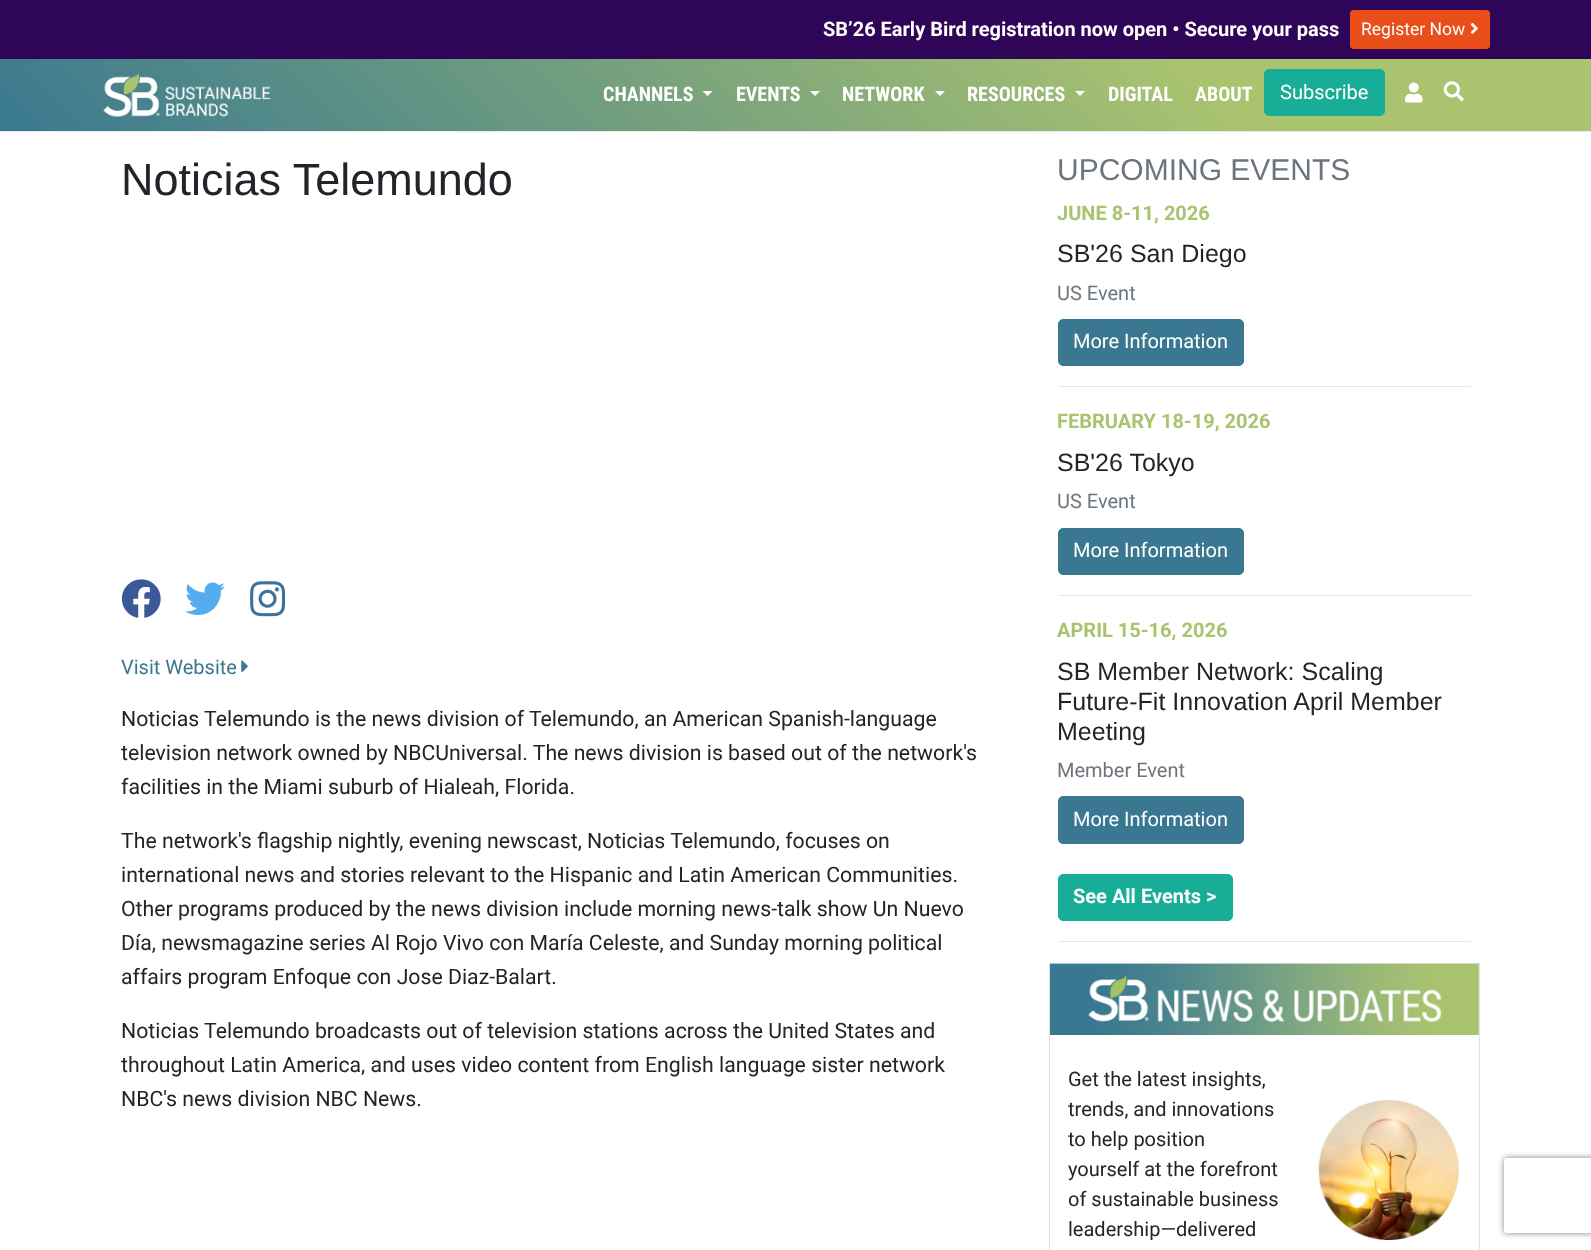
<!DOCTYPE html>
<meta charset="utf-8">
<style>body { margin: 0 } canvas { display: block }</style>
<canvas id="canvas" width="1591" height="1250"></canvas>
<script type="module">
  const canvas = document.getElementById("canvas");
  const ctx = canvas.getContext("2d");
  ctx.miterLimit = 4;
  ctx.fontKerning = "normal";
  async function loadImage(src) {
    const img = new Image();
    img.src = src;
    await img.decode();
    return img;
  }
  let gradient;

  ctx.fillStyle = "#ffffff";
  ctx.fillRect(0, 0, 1591, 1250);
  ctx.fillStyle = "#2f0557";
  ctx.fillRect(0, 0, 1591, 59);
  ctx.font = "bold 20px Roboto";
  ctx.fillStyle = "#ffffff";
  ctx.fillText("SB’26 Early Bird registration now open • Secure your pass", 823, 36);
  ctx.fillStyle = "#e94e1b";
  ctx.beginPath();
  ctx.roundRect(1350, 10, 140, 39, 4);
  ctx.fill();
  ctx.font = "17.5px Roboto";
  ctx.fillStyle = "#ffffff";
  ctx.fillText("Register Now", 1361, 35);
  ctx.drawImage(await loadImage("img1.png"), 1470, 23, 8, 11);
  gradient = ctx.createLinearGradient(380, 511, 1212, -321);
  gradient.addColorStop(0, "#397890");
  gradient.addColorStop(0.75, "#a9c36f");
  ctx.fillStyle = gradient;
  ctx.fillRect(0, 59, 1591, 72);
  ctx.drawImage(await loadImage("img2.png"), 103, 73, 168, 44);
  ctx.font = "bold 20px Roboto Condensed";
  ctx.fillStyle = "#ffffff";
  ctx.fillText("CHANNELS", 603, 101);
  ctx.beginPath();
  ctx.moveTo(702.5, 91);
  ctx.lineTo(712.5, 91);
  ctx.lineTo(707.5, 96);
  ctx.closePath();
  ctx.fill();
  ctx.fillText("EVENTS", 736, 101);
  ctx.beginPath();
  ctx.moveTo(810, 91);
  ctx.lineTo(820, 91);
  ctx.lineTo(815, 96);
  ctx.closePath();
  ctx.fill();
  ctx.fillText("NETWORK", 842, 101);
  ctx.beginPath();
  ctx.moveTo(935, 91);
  ctx.lineTo(945, 91);
  ctx.lineTo(940, 96);
  ctx.closePath();
  ctx.fill();
  ctx.fillText("RESOURCES", 967, 101);
  ctx.beginPath();
  ctx.moveTo(1075, 91);
  ctx.lineTo(1085, 91);
  ctx.lineTo(1080, 96);
  ctx.closePath();
  ctx.fill();
  ctx.fillText("DIGITAL", 1108, 101);
  ctx.fillText("ABOUT", 1195, 101);
  ctx.fillStyle = "#18ad96";
  ctx.beginPath();
  ctx.roundRect(1264.5, 69.5, 120, 46, 4.5);
  ctx.fill();
  ctx.strokeStyle = "#18ad96";
  ctx.stroke();
  ctx.font = "20px Roboto";
  ctx.fillStyle = "#ffffff";
  ctx.fillText("Subscribe", 1280, 99);
  ctx.drawImage(await loadImage("img3.png"), 1405, 82, 18, 21);
  ctx.drawImage(await loadImage("img4.png"), 1443, 81, 21, 21);
  ctx.fillStyle = "#eaeaea";
  ctx.fillRect(0, 131, 1591, 1);
  ctx.font = "45px Liberation Sans";
  ctx.fillStyle = "#212529";
  ctx.fillText("Noticias Telemundo", 121, 195);
  ctx.drawImage(await loadImage("img5.png"), 121, 579, 40, 39);
  ctx.drawImage(await loadImage("img6.png"), 185, 582, 40, 33);
  ctx.drawImage(await loadImage("img7.png"), 250, 581, 36, 36);
  ctx.font = "20px Roboto";
  ctx.fillStyle = "#397890";
  ctx.fillText("Visit Website", 121, 674);
  ctx.drawImage(await loadImage("img8.png"), 241, 660, 7, 12);
  ctx.font = "21.25px Roboto";
  ctx.fillStyle = "#212529";
  ctx.fillText("Noticias Telemundo is the news division of Telemundo, an American Spanish-language", 121, 726);
  ctx.fillText("television network owned by NBCUniversal. The news division is based out of the network's", 121, 760);
  ctx.fillText("facilities in the Miami suburb of Hialeah, Florida.", 121, 794);
  ctx.fillText("The network's flagship nightly, evening newscast, Noticias Telemundo, focuses on", 121, 848);
  ctx.fillText("international news and stories relevant to the Hispanic and Latin American Communities.", 121, 882);
  ctx.fillText("Other programs produced by the news division include morning news-talk show Un Nuevo", 121, 916);
  ctx.fillText("Día, newsmagazine series Al Rojo Vivo con María Celeste, and Sunday morning political", 121, 950);
  ctx.fillText("affairs program Enfoque con Jose Diaz-Balart.", 121, 984);
  ctx.fillText("Noticias Telemundo broadcasts out of television stations across the United States and", 121, 1038);
  ctx.fillText("throughout Latin America, and uses video content from English language sister network", 121, 1072);
  ctx.fillText("NBC's news division NBC News.", 121, 1106);
  ctx.font = "30px Liberation Sans";
  ctx.fillStyle = "#6c757d";
  ctx.fillText("UPCOMING EVENTS", 1057, 180);
  ctx.font = "bold 20px Roboto";
  ctx.fillStyle = "#a9c36f";
  ctx.fillText("JUNE 8-11, 2026", 1057, 220);
  ctx.font = "25px Liberation Sans";
  ctx.fillStyle = "#212529";
  ctx.fillText("SB'26 San Diego", 1057, 262);
  ctx.font = "20px Roboto";
  ctx.fillStyle = "#6c757d";
  ctx.fillText("US Event", 1057, 300);
  ctx.fillStyle = "#397890";
  ctx.beginPath();
  ctx.roundRect(1058.5, 319.5, 185, 46, 4.5);
  ctx.fill();
  ctx.strokeStyle = "#397890";
  ctx.stroke();
  ctx.fillStyle = "#ffffff";
  ctx.fillText("More Information", 1073, 348);
  ctx.fillStyle = "#e6e6e6";
  ctx.fillRect(1058, 386, 413, 1);
  ctx.font = "bold 20px Roboto";
  ctx.fillStyle = "#a9c36f";
  ctx.fillText("FEBRUARY 18-19, 2026", 1057, 428);
  ctx.font = "25px Liberation Sans";
  ctx.fillStyle = "#212529";
  ctx.fillText("SB'26 Tokyo", 1057, 471);
  ctx.font = "20px Roboto";
  ctx.fillStyle = "#6c757d";
  ctx.fillText("US Event", 1057, 508);
  ctx.fillStyle = "#397890";
  ctx.beginPath();
  ctx.roundRect(1058.5, 528.5, 185, 46, 4.5);
  ctx.fill();
  ctx.stroke();
  ctx.fillStyle = "#ffffff";
  ctx.fillText("More Information", 1073, 557);
  ctx.fillStyle = "#e6e6e6";
  ctx.fillRect(1058, 595, 413, 1);
  ctx.font = "bold 20px Roboto";
  ctx.fillStyle = "#a9c36f";
  ctx.fillText("APRIL 15-16, 2026", 1057, 637);
  ctx.font = "25px Liberation Sans";
  ctx.fillStyle = "#212529";
  ctx.fillText("SB Member Network: Scaling", 1057, 680);
  ctx.fillText("Future-Fit Innovation April Member", 1057, 710);
  ctx.fillText("Meeting", 1057, 740);
  ctx.font = "20px Roboto";
  ctx.fillStyle = "#6c757d";
  ctx.fillText("Member Event", 1057, 777);
  ctx.fillStyle = "#397890";
  ctx.beginPath();
  ctx.roundRect(1058.5, 796.5, 185, 47, 4.5);
  ctx.fill();
  ctx.stroke();
  ctx.fillStyle = "#ffffff";
  ctx.fillText("More Information", 1073, 826);
  ctx.fillStyle = "#18ad96";
  ctx.beginPath();
  ctx.roundRect(1058.5, 874.5, 174, 46, 4.5);
  ctx.fill();
  ctx.strokeStyle = "#18ad96";
  ctx.stroke();
  ctx.font = "bold 20px Roboto";
  ctx.fillStyle = "#ffffff";
  ctx.fillText("See All Events >", 1073, 903);
  ctx.fillStyle = "#e6e6e6";
  ctx.fillRect(1058, 941, 413, 1);
  ctx.strokeStyle = "#dee2e6";
  ctx.strokeRect(1049.5, 963.5, 430, 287);
  ctx.drawImage(await loadImage("img9.png"), 1050, 963, 429, 72);
  ctx.font = "20px Roboto";
  ctx.fillStyle = "#212529";
  ctx.fillText("Get the latest insights,", 1068, 1086);
  ctx.fillText("trends, and innovations", 1068, 1116);
  ctx.fillText("to help position", 1068, 1146);
  ctx.fillText("yourself at the forefront", 1068, 1176);
  ctx.fillText("of sustainable business", 1068, 1206);
  ctx.fillText("leadership—delivered", 1068, 1236);
  ctx.drawImage(await loadImage("img10.png"), 1318, 1100, 141, 140);
  ctx.save();
  ctx.beginPath();
  ctx.moveTo(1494, 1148);
  ctx.lineTo(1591, 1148);
  ctx.lineTo(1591, 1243);
  ctx.lineTo(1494, 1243);
  ctx.closePath();
  ctx.moveTo(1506.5, 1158);
  ctx.lineTo(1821.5, 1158);
  ctx.bezierCurveTo(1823, 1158, 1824, 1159, 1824, 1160.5);
  ctx.lineTo(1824, 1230.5);
  ctx.bezierCurveTo(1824, 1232, 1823, 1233, 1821.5, 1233);
  ctx.lineTo(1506.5, 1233);
  ctx.bezierCurveTo(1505, 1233, 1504, 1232, 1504, 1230.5);
  ctx.lineTo(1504, 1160.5);
  ctx.bezierCurveTo(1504, 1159, 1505, 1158, 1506.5, 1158);
  ctx.closePath();
  ctx.clip("evenodd");
  ctx.fillStyle = "#808080";
  ctx.filter = "blur(3px)";
  ctx.beginPath();
  ctx.roundRect(1504, 1158, 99, 75, 2.5);
  ctx.fill();
  ctx.filter = "none";
  ctx.restore();
</script>
